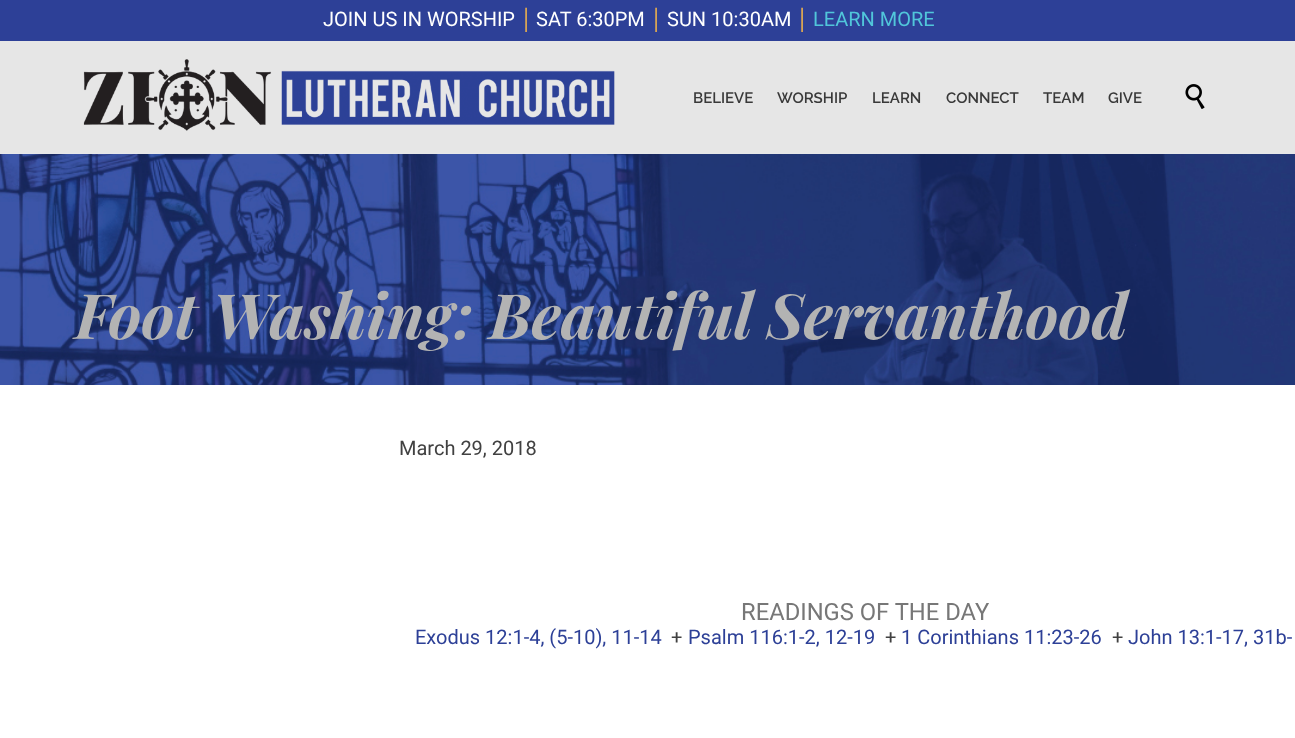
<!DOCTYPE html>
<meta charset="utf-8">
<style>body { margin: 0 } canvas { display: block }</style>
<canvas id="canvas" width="1295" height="738"></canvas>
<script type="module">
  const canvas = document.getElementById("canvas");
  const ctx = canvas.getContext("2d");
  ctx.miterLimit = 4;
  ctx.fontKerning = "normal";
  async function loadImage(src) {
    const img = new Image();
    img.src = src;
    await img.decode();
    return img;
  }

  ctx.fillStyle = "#000000";
  ctx.fillRect(0, 0, 1295, 738);
  ctx.drawImage(await loadImage("img3.png"), 0, 153, 1295, 232);
  ctx.fillStyle = "rgba(255, 255, 255, 0.9)";
  ctx.fillRect(0, 41, 1295, 113);
  ctx.fillStyle = "#2d4097";
  ctx.fillRect(0, 0, 1295, 41);
  ctx.font = "20px Roboto";
  ctx.fillStyle = "#ffffff";
  ctx.fillText("JOIN US IN WORSHIP", 323, 26);
  ctx.font = "20px Liberation Serif";
  ctx.fillStyle = "#fcb946";
  ctx.fillText("│", 519, 26);
  ctx.font = "20px Roboto";
  ctx.fillStyle = "#ffffff";
  ctx.fillText("SAT 6:30PM", 536, 26);
  ctx.font = "20px Liberation Serif";
  ctx.fillStyle = "#fcb946";
  ctx.fillText("│", 649, 26);
  ctx.font = "20px Roboto";
  ctx.fillStyle = "#ffffff";
  ctx.fillText("SUN 10:30AM", 667, 26);
  ctx.font = "20px Liberation Serif";
  ctx.fillStyle = "#fcb946";
  ctx.fillText("│", 795, 26);
  ctx.font = "20px Roboto";
  ctx.fillStyle = "#51c6da";
  ctx.fillText("LEARN MORE", 813, 26);
  ctx.drawImage(await loadImage("img1.png"), 83, 59, 532, 72);
  ctx.font = "600 15px Raleway";
  ctx.fillStyle = "#393939";
  ctx.fillText("BELIEVE", 693, 103);
  ctx.fillText("WORSHIP", 777, 103);
  ctx.fillText("LEARN", 872, 103);
  ctx.fillText("CONNECT", 946, 103);
  ctx.fillText("TEAM", 1043, 103);
  ctx.fillText("GIVE", 1108, 103);
  ctx.drawImage(await loadImage("img2.png"), 1185, 84, 20, 25);
  ctx.font = "italic bold 62.5px Playfair Display";
  ctx.fillStyle = "#b3b3b3";
  ctx.fillText("Foot Washing: Beautiful Servanthood", 75, 339);
  ctx.fillStyle = "#ffffff";
  ctx.fillRect(0, 385, 1295, 353);
  ctx.font = "20px Roboto";
  ctx.fillStyle = "#414141";
  ctx.fillText("March 29, 2018", 399, 455);
  ctx.font = "23.75px Roboto";
  ctx.fillStyle = "#777777";
  ctx.fillText("READINGS OF THE DAY", 741, 620);
  ctx.font = "20px Roboto";
  ctx.fillStyle = "#2d4097";
  ctx.fillText("Exodus 12:1-4, (5-10), 11-14", 415, 644);
  ctx.fillStyle = "#414141";
  ctx.fillText("+", 671, 644);
  ctx.fillStyle = "#2d4097";
  ctx.fillText("Psalm 116:1-2, 12-19", 688, 644);
  ctx.fillStyle = "#414141";
  ctx.fillText("+", 885, 644);
  ctx.fillStyle = "#2d4097";
  ctx.fillText("1 Corinthians 11:23-26", 901, 644);
  ctx.fillStyle = "#414141";
  ctx.fillText("+", 1112, 644);
  ctx.fillStyle = "#2d4097";
  ctx.fillText("John 13:1-17, 31b-", 1128, 644);
</script>
